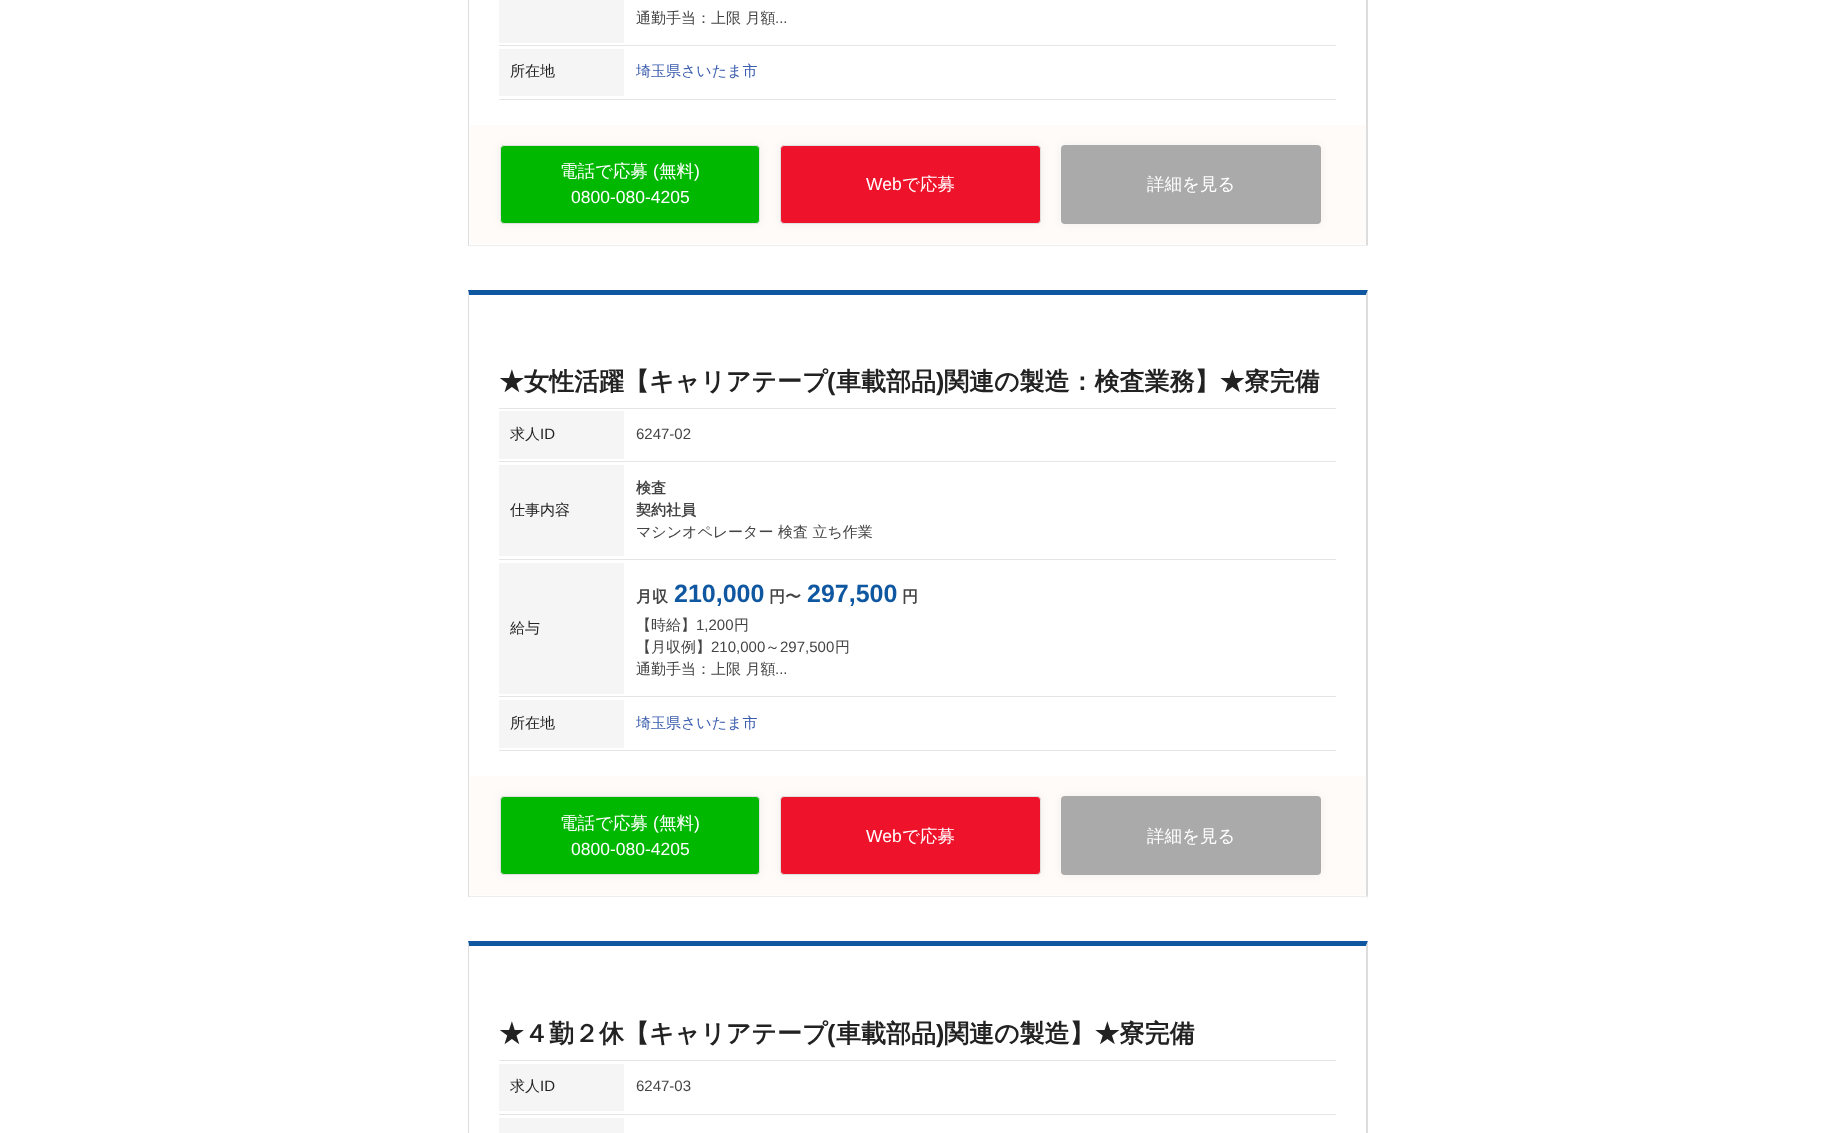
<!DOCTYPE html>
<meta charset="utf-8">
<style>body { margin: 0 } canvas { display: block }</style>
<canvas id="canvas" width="1834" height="1133"></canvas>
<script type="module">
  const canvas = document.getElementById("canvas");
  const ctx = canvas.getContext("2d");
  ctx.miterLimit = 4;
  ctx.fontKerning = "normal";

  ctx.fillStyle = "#ffffff";
  ctx.fillRect(0, 0, 1834, 1133);
  ctx.fillStyle = "#dddddd";
  ctx.beginPath();
  ctx.moveTo(1368, -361);
  ctx.lineTo(1368, 246);
  ctx.lineTo(1366, 245);
  ctx.lineTo(1366, -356);
  ctx.closePath();
  ctx.fill();
  ctx.fillStyle = "#eeeeee";
  ctx.fillRect(468, 245, 900, 1);
  ctx.fillStyle = "#dddddd";
  ctx.beginPath();
  ctx.moveTo(468, 246);
  ctx.lineTo(468, -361);
  ctx.lineTo(469, -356);
  ctx.lineTo(469, 245);
  ctx.closePath();
  ctx.fill();
  ctx.fillStyle = "#e5e5e5";
  ctx.fillRect(499, 99, 837, 1);
  ctx.fillStyle = "#f5f5f5";
  ctx.fillRect(499, 0, 125, 43);
  ctx.font = "500 15px WenQuanYi Zen Hei";
  ctx.fillStyle = "#444444";
  ctx.fillText("通勤手当：上限 月額", 636, 23);
  ctx.font = "15px Liberation Sans";
  ctx.fillText("...", 775, 23);
  ctx.fillStyle = "#e5e5e5";
  ctx.fillRect(499, 45, 837, 1);
  ctx.fillStyle = "#f5f5f5";
  ctx.fillRect(499, 49, 125, 47);
  ctx.font = "500 15px WenQuanYi Zen Hei";
  ctx.fillStyle = "#222222";
  ctx.fillText("所在地", 510, 76);
  ctx.fillStyle = "#395cad";
  ctx.fillText("埼玉県さいたま市", 636, 76);
  ctx.fillStyle = "#fffbf8";
  ctx.fillRect(470, 125, 896, 119);
  ctx.fillStyle = "rgba(0, 0, 0, 0.05)";
  ctx.filter = "blur(5px)";
  ctx.beginPath();
  ctx.roundRect(500, 145, 260, 79, 4);
  ctx.fill();
  ctx.filter = "none";
  ctx.fillStyle = "#00b800";
  ctx.beginPath();
  ctx.roundRect(500.5, 145.5, 259, 78, 3.5);
  ctx.fill();
  ctx.strokeStyle = "#e0e0e0";
  ctx.stroke();
  ctx.font = "500 17.5px WenQuanYi Zen Hei";
  ctx.fillStyle = "#ffffff";
  ctx.fillText("電話で応募", 560, 177);
  ctx.font = "17.5px Liberation Sans";
  ctx.fillText("(", 653, 177);
  ctx.font = "500 17.5px WenQuanYi Zen Hei";
  ctx.fillText("無料", 659, 177);
  ctx.font = "17.5px Liberation Sans";
  ctx.fillText(")", 694, 177);
  ctx.fillText("0800-080-4205", 571, 203);
  ctx.fillStyle = "rgba(0, 0, 0, 0.05)";
  ctx.filter = "blur(5px)";
  ctx.beginPath();
  ctx.roundRect(780, 145, 261, 79, 4);
  ctx.fill();
  ctx.filter = "none";
  ctx.fillStyle = "#ee122a";
  ctx.beginPath();
  ctx.roundRect(780.5, 145.5, 260, 78, 3.5);
  ctx.fill();
  ctx.stroke();
  ctx.fillStyle = "#ffffff";
  ctx.fillText("Web", 866, 190);
  ctx.font = "500 17.5px WenQuanYi Zen Hei";
  ctx.fillText("で応募", 902, 190);
  ctx.fillStyle = "rgba(0, 0, 0, 0.05)";
  ctx.filter = "blur(5px)";
  ctx.beginPath();
  ctx.roundRect(1061, 145, 260, 79, 4);
  ctx.fill();
  ctx.filter = "none";
  ctx.fillStyle = "#aaaaaa";
  ctx.beginPath();
  ctx.roundRect(1061, 145, 260, 79, 4);
  ctx.fill();
  ctx.fillStyle = "#ffffff";
  ctx.fillText("詳細を見る", 1147, 190);
  ctx.fillStyle = "#0f58a1";
  ctx.beginPath();
  ctx.moveTo(468, 290);
  ctx.lineTo(1368, 290);
  ctx.lineTo(1366, 295);
  ctx.lineTo(469, 295);
  ctx.closePath();
  ctx.fill();
  ctx.fillStyle = "#dddddd";
  ctx.beginPath();
  ctx.moveTo(1368, 290);
  ctx.lineTo(1368, 898);
  ctx.lineTo(1366, 896);
  ctx.lineTo(1366, 295);
  ctx.closePath();
  ctx.fill();
  ctx.fillStyle = "#eeeeee";
  ctx.fillRect(468, 896, 900, 1);
  ctx.fillStyle = "#dddddd";
  ctx.beginPath();
  ctx.moveTo(468, 898);
  ctx.lineTo(468, 290);
  ctx.lineTo(469, 295);
  ctx.lineTo(469, 896);
  ctx.closePath();
  ctx.fill();
  ctx.font = "bold 25px WenQuanYi Zen Hei";
  ctx.fillStyle = "#222222";
  ctx.fillText("★女性活躍【キャリアテープ", 499, 390);
  ctx.font = "bold 25px Liberation Sans";
  ctx.fillText("(", 827, 390);
  ctx.font = "bold 25px WenQuanYi Zen Hei";
  ctx.fillText("車載部品", 836, 390);
  ctx.font = "bold 25px Liberation Sans";
  ctx.fillText(")", 936, 390);
  ctx.font = "bold 25px WenQuanYi Zen Hei";
  ctx.fillText("関連の製造：検査業務】★寮完備", 944, 390);
  ctx.fillStyle = "#e5e5e5";
  ctx.fillRect(499, 750, 837, 1);
  ctx.fillRect(499, 408, 837, 1);
  ctx.fillStyle = "#f5f5f5";
  ctx.fillRect(499, 411, 125, 48);
  ctx.font = "500 15px WenQuanYi Zen Hei";
  ctx.fillStyle = "#222222";
  ctx.fillText("求人", 510, 439);
  ctx.font = "15px Liberation Sans";
  ctx.fillText("ID", 540, 439);
  ctx.fillStyle = "#444444";
  ctx.fillText("6247-02", 636, 439);
  ctx.fillStyle = "#e5e5e5";
  ctx.fillRect(499, 461, 837, 1);
  ctx.fillStyle = "#f5f5f5";
  ctx.fillRect(499, 465, 125, 91);
  ctx.font = "500 15px WenQuanYi Zen Hei";
  ctx.fillStyle = "#222222";
  ctx.fillText("仕事内容", 510, 515);
  ctx.font = "bold 15px WenQuanYi Zen Hei";
  ctx.fillStyle = "#444444";
  ctx.fillText("検査", 636, 493);
  ctx.fillText("契約社員", 636, 515);
  ctx.font = "500 15px WenQuanYi Zen Hei";
  ctx.fillText("マシンオペレーター 検査 立ち作業", 636, 537);
  ctx.fillStyle = "#e5e5e5";
  ctx.fillRect(499, 559, 837, 1);
  ctx.fillStyle = "#f5f5f5";
  ctx.fillRect(499, 563, 125, 131);
  ctx.fillStyle = "#222222";
  ctx.fillText("給与", 510, 633);
  ctx.font = "bold 16px WenQuanYi Zen Hei";
  ctx.fillStyle = "#444444";
  ctx.fillText("月収", 636, 602);
  ctx.font = "bold 25px Liberation Sans";
  ctx.fillStyle = "#0f58a1";
  ctx.fillText("210,000", 674, 602);
  ctx.font = "bold 16px WenQuanYi Zen Hei";
  ctx.fillStyle = "#444444";
  ctx.fillText("円〜", 769, 602);
  ctx.font = "bold 25px Liberation Sans";
  ctx.fillStyle = "#0f58a1";
  ctx.fillText("297,500", 807, 602);
  ctx.font = "bold 16px WenQuanYi Zen Hei";
  ctx.fillStyle = "#444444";
  ctx.fillText("円", 902, 602);
  ctx.font = "500 15px WenQuanYi Zen Hei";
  ctx.fillText("【時給】", 636, 630);
  ctx.font = "15px Liberation Sans";
  ctx.fillText("1,200", 696, 630);
  ctx.font = "500 15px WenQuanYi Zen Hei";
  ctx.fillText("円", 734, 630);
  ctx.fillText("【月収例】", 636, 652);
  ctx.font = "15px Liberation Sans";
  ctx.fillText("210,000", 711, 652);
  ctx.font = "500 15px WenQuanYi Zen Hei";
  ctx.fillText("～", 765, 652);
  ctx.font = "15px Liberation Sans";
  ctx.fillText("297,500", 780, 652);
  ctx.font = "500 15px WenQuanYi Zen Hei";
  ctx.fillText("円", 835, 652);
  ctx.fillText("通勤手当：上限 月額", 636, 674);
  ctx.font = "15px Liberation Sans";
  ctx.fillText("...", 775, 674);
  ctx.fillStyle = "#e5e5e5";
  ctx.fillRect(499, 696, 837, 1);
  ctx.fillStyle = "#f5f5f5";
  ctx.fillRect(499, 700, 125, 48);
  ctx.font = "500 15px WenQuanYi Zen Hei";
  ctx.fillStyle = "#222222";
  ctx.fillText("所在地", 510, 728);
  ctx.fillStyle = "#395cad";
  ctx.fillText("埼玉県さいたま市", 636, 728);
  ctx.fillStyle = "#fffbf8";
  ctx.fillRect(470, 776, 896, 119);
  ctx.fillStyle = "rgba(0, 0, 0, 0.05)";
  ctx.filter = "blur(5px)";
  ctx.beginPath();
  ctx.roundRect(500, 796, 260, 79, 4);
  ctx.fill();
  ctx.filter = "none";
  ctx.fillStyle = "#00b800";
  ctx.beginPath();
  ctx.roundRect(500.5, 796.5, 259, 78, 3.5);
  ctx.fill();
  ctx.stroke();
  ctx.font = "500 17.5px WenQuanYi Zen Hei";
  ctx.fillStyle = "#ffffff";
  ctx.fillText("電話で応募", 560, 829);
  ctx.font = "17.5px Liberation Sans";
  ctx.fillText("(", 653, 829);
  ctx.font = "500 17.5px WenQuanYi Zen Hei";
  ctx.fillText("無料", 659, 829);
  ctx.font = "17.5px Liberation Sans";
  ctx.fillText(")", 694, 829);
  ctx.fillText("0800-080-4205", 571, 855);
  ctx.fillStyle = "rgba(0, 0, 0, 0.05)";
  ctx.filter = "blur(5px)";
  ctx.beginPath();
  ctx.roundRect(780, 796, 261, 79, 4);
  ctx.fill();
  ctx.filter = "none";
  ctx.fillStyle = "#ee122a";
  ctx.beginPath();
  ctx.roundRect(780.5, 796.5, 260, 78, 3.5);
  ctx.fill();
  ctx.stroke();
  ctx.fillStyle = "#ffffff";
  ctx.fillText("Web", 866, 842);
  ctx.font = "500 17.5px WenQuanYi Zen Hei";
  ctx.fillText("で応募", 902, 842);
  ctx.fillStyle = "rgba(0, 0, 0, 0.05)";
  ctx.filter = "blur(5px)";
  ctx.beginPath();
  ctx.roundRect(1061, 796, 260, 79, 4);
  ctx.fill();
  ctx.filter = "none";
  ctx.fillStyle = "#aaaaaa";
  ctx.beginPath();
  ctx.roundRect(1061, 796, 260, 79, 4);
  ctx.fill();
  ctx.fillStyle = "#ffffff";
  ctx.fillText("詳細を見る", 1147, 842);
  ctx.fillStyle = "#0f58a1";
  ctx.beginPath();
  ctx.moveTo(468, 941);
  ctx.lineTo(1368, 941);
  ctx.lineTo(1366, 946);
  ctx.lineTo(469, 946);
  ctx.closePath();
  ctx.fill();
  ctx.fillStyle = "#dddddd";
  ctx.beginPath();
  ctx.moveTo(1368, 941);
  ctx.lineTo(1368, 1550);
  ctx.lineTo(1366, 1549);
  ctx.lineTo(1366, 946);
  ctx.closePath();
  ctx.fill();
  ctx.beginPath();
  ctx.moveTo(468, 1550);
  ctx.lineTo(468, 941);
  ctx.lineTo(469, 946);
  ctx.lineTo(469, 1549);
  ctx.closePath();
  ctx.fill();
  ctx.font = "bold 25px WenQuanYi Zen Hei";
  ctx.fillStyle = "#222222";
  ctx.fillText("★４勤２休【キャリアテープ", 499, 1042);
  ctx.font = "bold 25px Liberation Sans";
  ctx.fillText("(", 827, 1042);
  ctx.font = "bold 25px WenQuanYi Zen Hei";
  ctx.fillText("車載部品", 836, 1042);
  ctx.font = "bold 25px Liberation Sans";
  ctx.fillText(")", 936, 1042);
  ctx.font = "bold 25px WenQuanYi Zen Hei";
  ctx.fillText("関連の製造】★寮完備", 944, 1042);
  ctx.fillStyle = "#e5e5e5";
  ctx.fillRect(499, 1060, 837, 1);
  ctx.fillStyle = "#f5f5f5";
  ctx.fillRect(499, 1064, 125, 47);
  ctx.font = "500 15px WenQuanYi Zen Hei";
  ctx.fillStyle = "#222222";
  ctx.fillText("求人", 510, 1091);
  ctx.font = "15px Liberation Sans";
  ctx.fillText("ID", 540, 1091);
  ctx.fillStyle = "#444444";
  ctx.fillText("6247-03", 636, 1091);
  ctx.fillStyle = "#e5e5e5";
  ctx.fillRect(499, 1114, 837, 1);
  ctx.fillStyle = "#f5f5f5";
  ctx.fillRect(499, 1118, 125, 15);
</script>
